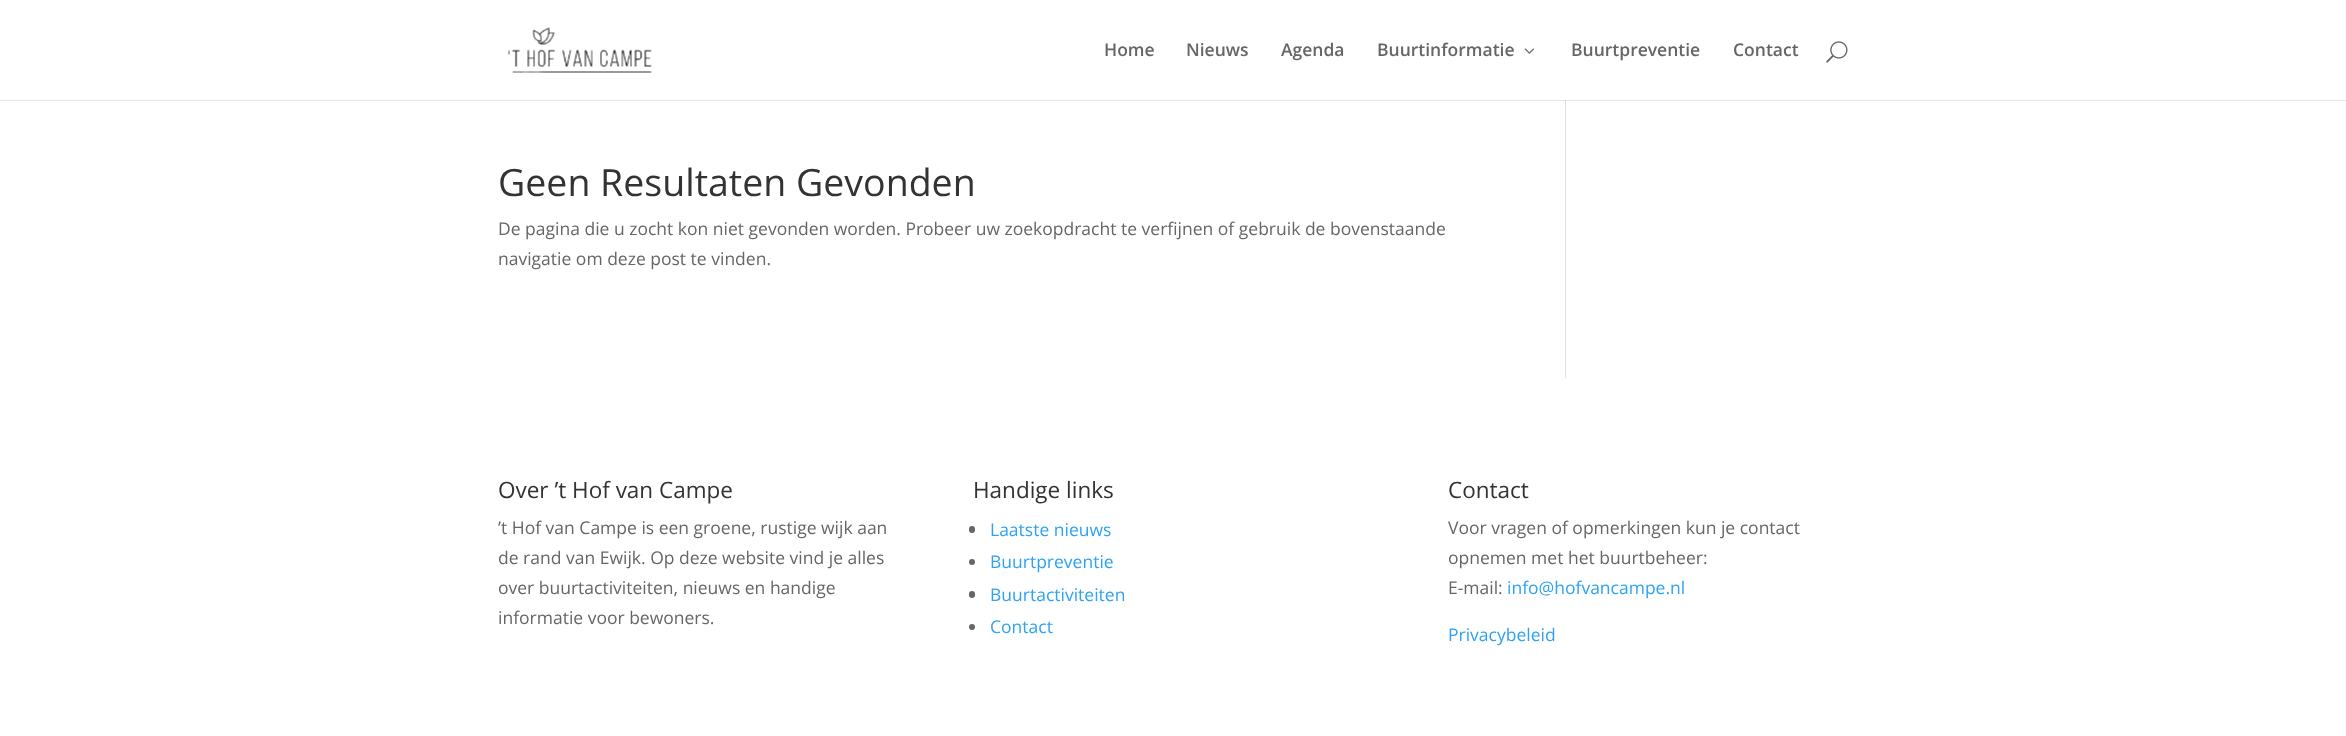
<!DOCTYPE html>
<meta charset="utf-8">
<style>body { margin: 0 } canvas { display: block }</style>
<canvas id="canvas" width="2346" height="736"></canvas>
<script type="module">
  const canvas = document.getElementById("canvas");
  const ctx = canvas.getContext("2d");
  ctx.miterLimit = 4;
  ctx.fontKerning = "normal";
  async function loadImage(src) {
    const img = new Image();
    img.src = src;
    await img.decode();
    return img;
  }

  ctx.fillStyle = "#ffffff";
  ctx.fillRect(0, 0, 2346, 736);
  ctx.fillStyle = "#e6e6e6";
  ctx.fillRect(0, 100, 2346, 1);
  ctx.drawImage(await loadImage("img1.png"), 508, 27, 144, 46);
  ctx.font = "600 17.5px Open Sans";
  ctx.fillStyle = "#666666";
  ctx.fillText("Home", 1104, 56);
  ctx.fillText("Nieuws", 1186, 56);
  ctx.fillText("Agenda", 1281, 56);
  ctx.fillText("Buurtinformatie", 1377, 56);
  ctx.drawImage(await loadImage("img2.png"), 1524, 48, 10, 6);
  ctx.fillText("Buurtpreventie", 1571, 56);
  ctx.fillText("Contact", 1733, 56);
  ctx.drawImage(await loadImage("img3.png"), 1826, 41, 22, 22);
  ctx.font = "37.5px Open Sans";
  ctx.fillStyle = "#333333";
  ctx.fillText("Geen Resultaten Gevonden", 498, 196);
  ctx.font = "17.5px Open Sans";
  ctx.fillStyle = "#666666";
  ctx.fillText("De pagina die u zocht kon niet gevonden worden. Probeer uw zoekopdracht te verfijnen of gebruik de bovenstaande", 498, 235);
  ctx.fillText("navigatie om deze post te vinden.", 498, 265);
  ctx.fillStyle = "#e2e2e2";
  ctx.fillRect(1565, 101, 1, 277);
  ctx.fillStyle = "#cbcbcb";
  ctx.fillRect(1565, 100, 1, 1);
  ctx.font = "22.5px Open Sans";
  ctx.fillStyle = "#333333";
  ctx.fillText("Over ’t Hof van Campe", 498, 498);
  ctx.font = "17.5px Open Sans";
  ctx.fillStyle = "#666666";
  ctx.fillText("’t Hof van Campe is een groene, rustige wijk aan", 498, 534);
  ctx.fillText("de rand van Ewijk. Op deze website vind je alles", 498, 564);
  ctx.fillText("over buurtactiviteiten, nieuws en handige", 498, 594);
  ctx.fillText("informatie voor bewoners.", 498, 624);
  ctx.font = "22.5px Open Sans";
  ctx.fillStyle = "#333333";
  ctx.fillText("Handige links", 973, 498);
  ctx.fillStyle = "#666666";
  ctx.beginPath();
  ctx.roundRect(969, 526, 6, 7, 3);
  ctx.fill();
  ctx.font = "17.5px Open Sans";
  ctx.fillStyle = "#2ea3f2";
  ctx.fillText("Laatste nieuws", 990, 536);
  ctx.fillStyle = "#666666";
  ctx.beginPath();
  ctx.arc(972, 562, 3, 0, Math.PI * 2);
  ctx.fill();
  ctx.fillStyle = "#2ea3f2";
  ctx.fillText("Buurtpreventie", 990, 568);
  ctx.fillStyle = "#666666";
  ctx.beginPath();
  ctx.roundRect(969, 591, 6, 7, 3);
  ctx.fill();
  ctx.fillStyle = "#2ea3f2";
  ctx.fillText("Buurtactiviteiten", 990, 601);
  ctx.fillStyle = "#666666";
  ctx.beginPath();
  ctx.arc(972, 627, 3, 0, Math.PI * 2);
  ctx.fill();
  ctx.fillStyle = "#2ea3f2";
  ctx.fillText("Contact", 990, 633);
  ctx.font = "22.5px Open Sans";
  ctx.fillStyle = "#333333";
  ctx.fillText("Contact", 1448, 498);
  ctx.font = "17.5px Open Sans";
  ctx.fillStyle = "#666666";
  ctx.fillText("Voor vragen of opmerkingen kun je contact", 1448, 534);
  ctx.fillText("opnemen met het buurtbeheer:", 1448, 564);
  ctx.fillText("E-mail:", 1448, 594);
  ctx.fillStyle = "#2ea3f2";
  ctx.fillText("info@hofvancampe.nl", 1507, 594);
  ctx.fillText("Privacybeleid", 1448, 641);
</script>
